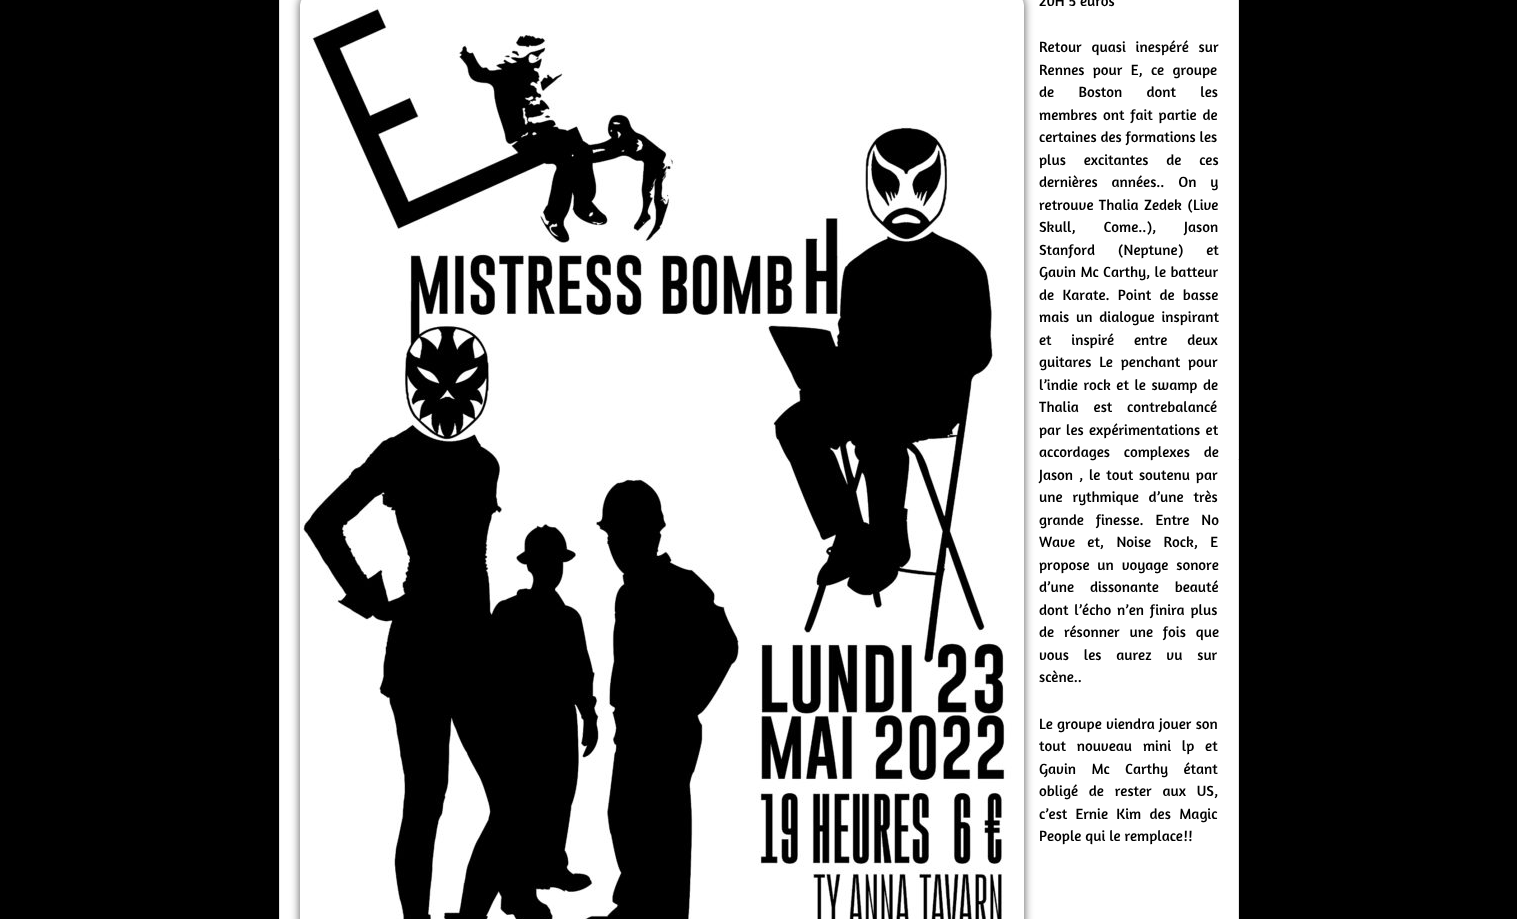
<!DOCTYPE html>
<meta charset="utf-8">
<style>body { margin: 0 } canvas { display: block }</style>
<canvas id="canvas" width="1517" height="919"></canvas>
<script type="module">
  const canvas = document.getElementById("canvas");
  const ctx = canvas.getContext("2d");
  ctx.miterLimit = 4;
  ctx.fontKerning = "normal";
  async function loadImage(src) {
    const img = new Image();
    img.src = src;
    await img.decode();
    return img;
  }

  ctx.fillStyle = "#000000";
  ctx.fillRect(0, 0, 1517, 919);
  ctx.fillStyle = "#ffffff";
  ctx.beginPath();
  ctx.rect(279.5, -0.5, 959, 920);
  ctx.fill();
  ctx.strokeStyle = "#e5e5e5";
  ctx.stroke();
  ctx.fillStyle = "#555555";
  ctx.filter = "blur(5px)";
  ctx.beginPath();
  ctx.roundRect(300, -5, 724, 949, 10);
  ctx.fill();
  ctx.filter = "none";
  ctx.drawImage(await loadImage("img1.png"), 300, 0, 724, 919);
  ctx.font = "15px Amaranth";
  ctx.fillStyle = "#000000";
  ctx.fillText("20H 5 euros", 1039, 6);
  ctx.wordSpacing = "6px";
  ctx.fillText("Retour quasi inespéré sur", 1039, 52);
  ctx.wordSpacing = "4.5px";
  ctx.fillText("Rennes pour E, ce groupe", 1039, 75);
  ctx.wordSpacing = "20.5px";
  ctx.fillText("de Boston dont les", 1039, 97);
  ctx.wordSpacing = "2px";
  ctx.fillText("membres ont fait partie de", 1039, 120);
  ctx.wordSpacing = "0px";
  ctx.fillText("certaines des formations les", 1039, 142);
  ctx.wordSpacing = "14px";
  ctx.fillText("plus excitantes de ces", 1039, 165);
  ctx.wordSpacing = "10px";
  ctx.fillText("dernières années.. On y", 1039, 187);
  ctx.wordSpacing = "1.5px";
  ctx.fillText("retrouve Thalia Zedek (Live", 1039, 210);
  ctx.wordSpacing = "24px";
  ctx.fillText("Skull, Come..), Jason", 1039, 232);
  ctx.wordSpacing = "19px";
  ctx.fillText("Stanford (Neptune) et", 1039, 255);
  ctx.wordSpacing = "0.5px";
  ctx.fillText("Gavin Mc Carthy, le batteur", 1039, 277);
  ctx.wordSpacing = "4.5px";
  ctx.fillText("de Karate. Point de basse", 1039, 300);
  ctx.wordSpacing = "3px";
  ctx.fillText("mais un dialogue inspirant", 1039, 322);
  ctx.wordSpacing = "16px";
  ctx.fillText("et inspiré entre deux", 1039, 345);
  ctx.wordSpacing = "4px";
  ctx.fillText("guitares Le penchant pour", 1039, 367);
  ctx.wordSpacing = "1.75px";
  ctx.fillText("l’indie rock et le swamp de", 1039, 390);
  ctx.wordSpacing = "11px";
  ctx.fillText("Thalia est contrebalancé", 1039, 412);
  ctx.wordSpacing = "1.5px";
  ctx.fillText("par les expérimentations et", 1039, 435);
  ctx.wordSpacing = "10px";
  ctx.fillText("accordages complexes de", 1039, 457);
  ctx.wordSpacing = "2px";
  ctx.fillText("Jason , le tout soutenu par", 1039, 480);
  ctx.wordSpacing = "6px";
  ctx.fillText("une rythmique d’une très", 1039, 502);
  ctx.wordSpacing = "8px";
  ctx.fillText("grande finesse. Entre No", 1039, 525);
  ctx.wordSpacing = "8.5px";
  ctx.fillText("Wave et, Noise Rock, E", 1039, 547);
  ctx.wordSpacing = "4px";
  ctx.fillText("propose un voyage sonore", 1039, 570);
  ctx.wordSpacing = "12px";
  ctx.fillText("d’une dissonante beauté", 1039, 592);
  ctx.wordSpacing = "2px";
  ctx.fillText("dont l’écho n’en finira plus", 1039, 615);
  ctx.wordSpacing = "6px";
  ctx.fillText("de résonner une fois que", 1039, 637);
  ctx.wordSpacing = "11px";
  ctx.fillText("vous les aurez vu sur", 1039, 660);
  ctx.wordSpacing = "0px";
  ctx.fillText("scène..", 1039, 682);
  ctx.wordSpacing = "0.5px";
  ctx.fillText("Le groupe viendra jouer son", 1039, 729);
  ctx.wordSpacing = "7px";
  ctx.fillText("tout nouveau mini lp et", 1039, 751);
  ctx.wordSpacing = "11.5px";
  ctx.fillText("Gavin Mc Carthy étant", 1039, 774);
  ctx.wordSpacing = "7px";
  ctx.fillText("obligé de rester aux US,", 1039, 796);
  ctx.wordSpacing = "4.5px";
  ctx.fillText("c’est Ernie Kim des Magic", 1039, 819);
  ctx.wordSpacing = "0px";
  ctx.fillText("People qui le remplace!!", 1039, 841);
</script>
